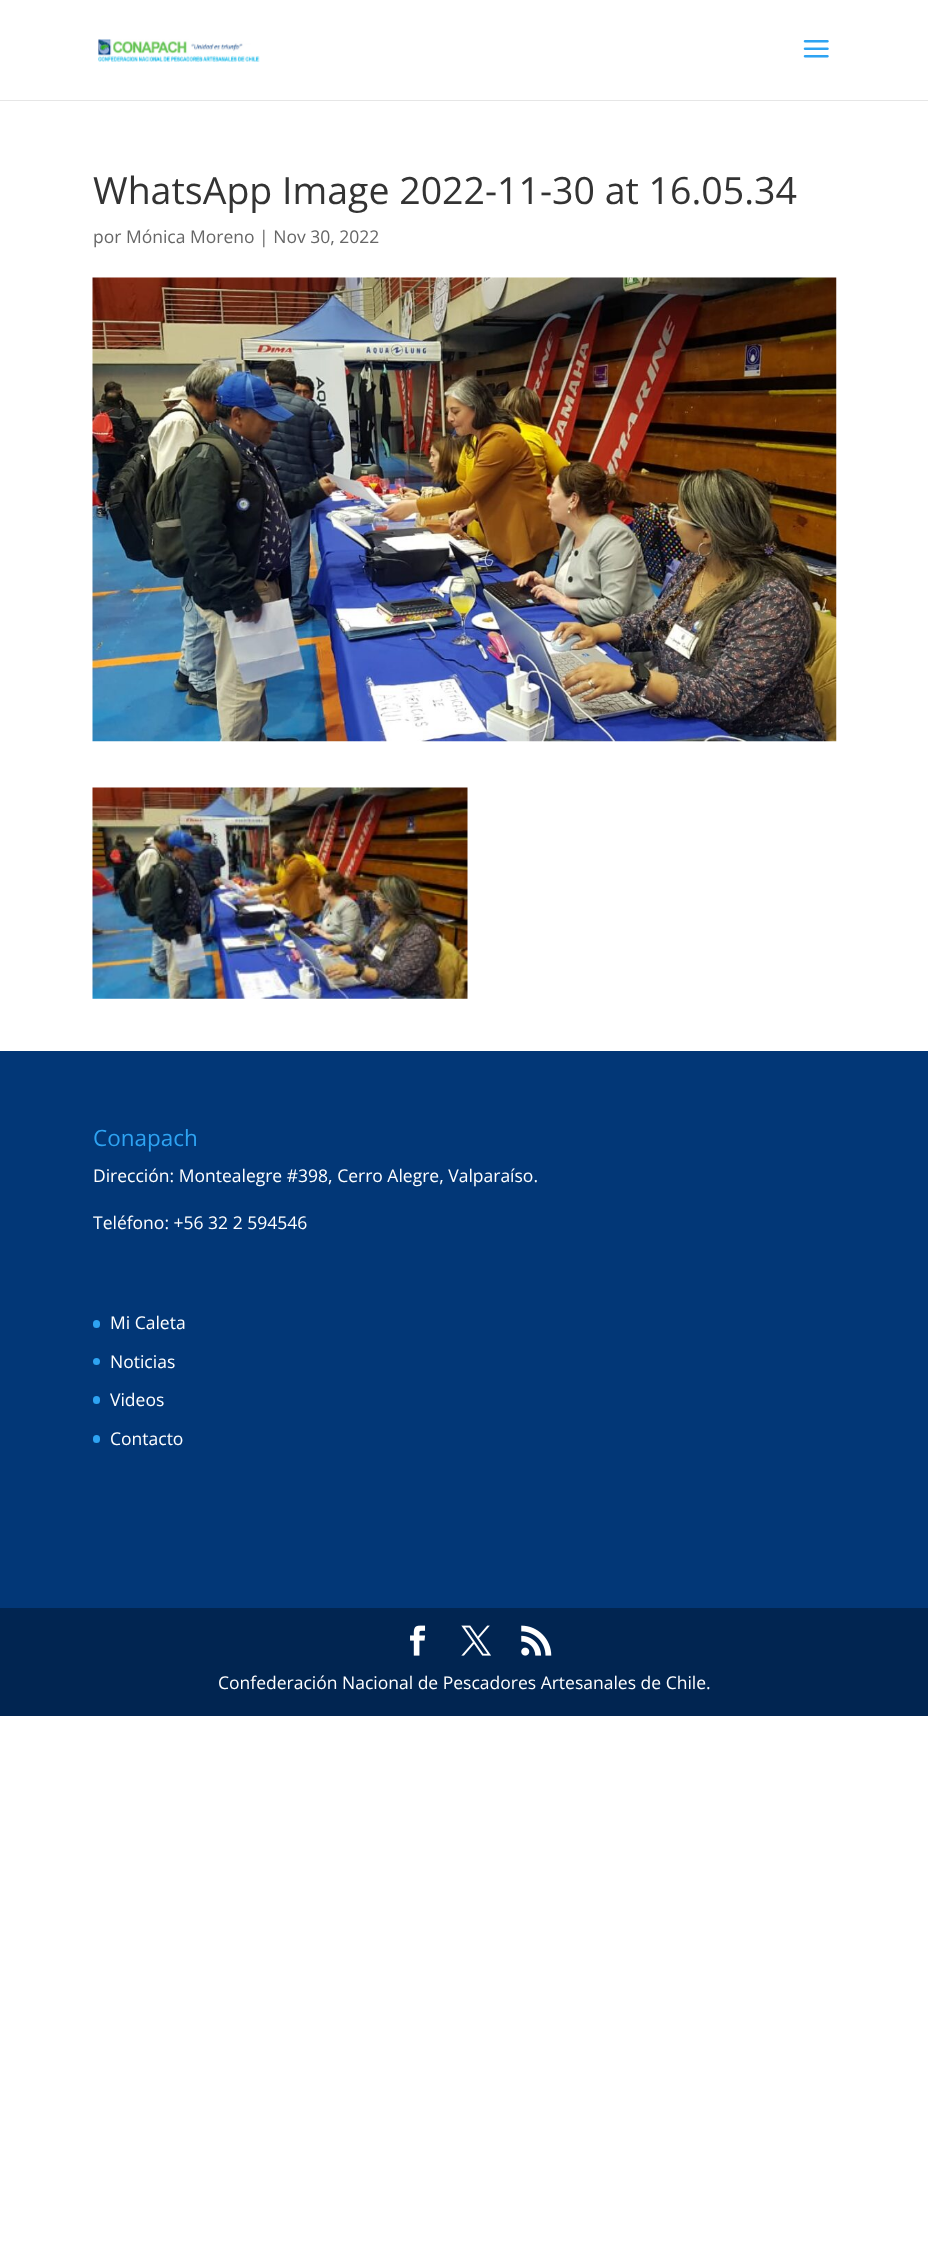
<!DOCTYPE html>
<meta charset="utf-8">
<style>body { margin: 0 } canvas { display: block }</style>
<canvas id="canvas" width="928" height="2264"></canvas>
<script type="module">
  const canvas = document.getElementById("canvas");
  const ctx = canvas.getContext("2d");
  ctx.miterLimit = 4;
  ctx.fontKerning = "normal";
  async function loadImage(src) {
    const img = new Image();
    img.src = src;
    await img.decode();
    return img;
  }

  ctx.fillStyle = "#ffffff";
  ctx.fillRect(0, 0, 928, 2264);
  ctx.fillStyle = "#e6e6e6";
  ctx.beginPath();
  ctx.moveTo(0, 100);
  ctx.lineTo(0, 101);
  ctx.lineTo(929, 101);
  ctx.lineTo(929, 1);
  ctx.lineTo(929, 100);
  ctx.closePath();
  ctx.fill();
  ctx.drawImage(await loadImage("img1.png"), 98, 39, 162, 23);
  ctx.drawImage(await loadImage("img2.png"), 803, 40, 26, 18);
  ctx.font = "37.5px Open Sans";
  ctx.fillStyle = "#333333";
  ctx.fillText("WhatsApp Image 2022-11-30 at 16.05.34", 93, 204);
  ctx.font = "17.5px Open Sans";
  ctx.fillStyle = "#666666";
  ctx.fillText("por Mónica Moreno | Nov 30, 2022", 93, 243);
  ctx.drawImage(await loadImage("img3.png"), 92, 277, 745, 465);
  ctx.drawImage(await loadImage("img4.png"), 92, 787, 376, 212);
  ctx.fillStyle = "#023777";
  ctx.fillRect(0, 1051, 928, 557);
  ctx.font = "22.5px Open Sans";
  ctx.fillStyle = "#2ea3f2";
  ctx.fillText("Conapach", 93, 1146);
  ctx.font = "17.5px Open Sans";
  ctx.fillStyle = "#ffffff";
  ctx.fillText("Dirección: Montealegre #398, Cerro Alegre, Valparaíso.", 93, 1182);
  ctx.fillText("Teléfono: +56 32 2 594546", 93, 1229);
  ctx.fillStyle = "#2ea3f2";
  ctx.beginPath();
  ctx.roundRect(93, 1320, 7, 8, 3.5);
  ctx.fill();
  ctx.fillStyle = "#ffffff";
  ctx.fillText("Mi Caleta", 110, 1329);
  ctx.fillStyle = "#2ea3f2";
  ctx.beginPath();
  ctx.arc(96.5, 1361.5, 3.5, 0, Math.PI * 2);
  ctx.fill();
  ctx.fillStyle = "#ffffff";
  ctx.fillText("Noticias", 110, 1368);
  ctx.fillStyle = "#2ea3f2";
  ctx.beginPath();
  ctx.roundRect(93, 1396, 7, 8, 3.5);
  ctx.fill();
  ctx.fillStyle = "#ffffff";
  ctx.fillText("Videos", 110, 1406);
  ctx.fillStyle = "#2ea3f2";
  ctx.beginPath();
  ctx.roundRect(93, 1435, 7, 8, 3.5);
  ctx.fill();
  ctx.fillStyle = "#ffffff";
  ctx.fillText("Contacto", 110, 1445);
  ctx.fillStyle = "#012551";
  ctx.fillRect(0, 1608, 928, 108);
  ctx.drawImage(await loadImage("img5.png"), 410, 1625, 16, 31);
  ctx.drawImage(await loadImage("img6.png"), 461, 1625, 30, 31);
  ctx.drawImage(await loadImage("img7.png"), 521, 1625, 31, 31);
  ctx.fillStyle = "#ffffff";
  ctx.fillText("Confederación Nacional de Pescadores Artesanales de Chile.", 218, 1689);
</script>
